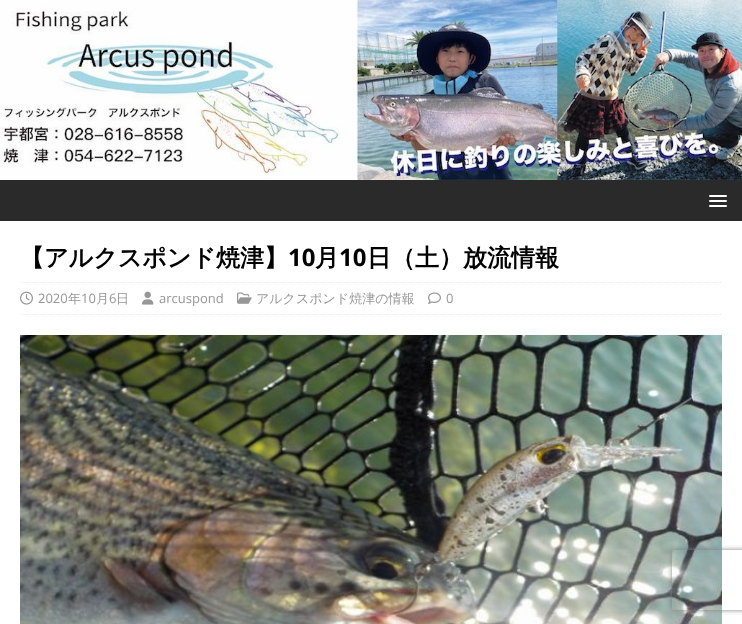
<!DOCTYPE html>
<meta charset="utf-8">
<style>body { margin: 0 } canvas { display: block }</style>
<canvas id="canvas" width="742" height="624"></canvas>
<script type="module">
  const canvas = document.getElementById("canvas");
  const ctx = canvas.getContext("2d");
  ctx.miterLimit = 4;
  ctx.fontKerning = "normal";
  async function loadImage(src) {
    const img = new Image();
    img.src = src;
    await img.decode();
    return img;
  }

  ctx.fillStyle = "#2a2a2a";
  ctx.fillRect(0, 0, 742, 624);
  ctx.drawImage(await loadImage("img1.png"), 0, 0, 742, 180);
  ctx.fillStyle = "#ffffff";
  ctx.beginPath();
  ctx.roundRect(709, 195, 18, 2, 1);
  ctx.fill();
  ctx.beginPath();
  ctx.roundRect(709, 200, 18, 2, 1);
  ctx.fill();
  ctx.beginPath();
  ctx.roundRect(709, 205, 18, 2, 1);
  ctx.fill();
  ctx.fillRect(0, 221, 742, 403);
  ctx.font = "bold 24px WenQuanYi Zen Hei";
  ctx.fillStyle = "#000000";
  ctx.fillText("【アルクスポンド焼津】", 20, 266);
  ctx.font = "bold 24px Open Sans";
  ctx.fillText("10", 288, 266);
  ctx.font = "bold 24px WenQuanYi Zen Hei";
  ctx.fillText("月", 315, 266);
  ctx.font = "bold 24px Open Sans";
  ctx.fillText("10", 339, 266);
  ctx.font = "bold 24px WenQuanYi Zen Hei";
  ctx.fillText("日（土）放流情報", 367, 266);
  ctx.beginPath();
  ctx.moveTo(20, 282.5);
  ctx.lineTo(722, 282.5);
  ctx.strokeStyle = "#ebebeb";
  ctx.setLineDash([1, 1]);
  ctx.stroke();
  ctx.beginPath();
  ctx.moveTo(20, 314.5);
  ctx.lineTo(722, 314.5);
  ctx.stroke();
  ctx.drawImage(await loadImage("img2.png"), 20, 291, 13, 14);
  ctx.font = "13px Open Sans";
  ctx.fillStyle = "#979797";
  ctx.fillText("2020", 38, 303);
  ctx.font = "500 13px WenQuanYi Zen Hei";
  ctx.fillText("年", 68, 303);
  ctx.font = "13px Open Sans";
  ctx.fillText("10", 81, 303);
  ctx.font = "500 13px WenQuanYi Zen Hei";
  ctx.fillText("月", 96, 303);
  ctx.font = "13px Open Sans";
  ctx.fillText("6", 109, 303);
  ctx.font = "500 13px WenQuanYi Zen Hei";
  ctx.fillText("日", 116, 303);
  ctx.drawImage(await loadImage("img3.png"), 142, 291, 12, 14);
  ctx.font = "13px Open Sans";
  ctx.fillText("arcuspond", 159, 303);
  ctx.drawImage(await loadImage("img4.png"), 237, 292, 15, 12);
  ctx.font = "500 13px WenQuanYi Zen Hei";
  ctx.fillText("アルクスポンド焼津の情報", 256, 303);
  ctx.drawImage(await loadImage("img5.png"), 428, 292, 13, 12);
  ctx.font = "13px Open Sans";
  ctx.fillText("0", 446, 303);
  ctx.drawImage(await loadImage("img6.png"), 20, 335, 702, 289);
  ctx.save();
  ctx.beginPath();
  ctx.moveTo(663, 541);
  ctx.lineTo(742, 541);
  ctx.lineTo(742, 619);
  ctx.lineTo(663, 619);
  ctx.closePath();
  ctx.moveTo(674, 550);
  ctx.lineTo(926, 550);
  ctx.bezierCurveTo(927, 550, 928, 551, 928, 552);
  ctx.lineTo(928, 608);
  ctx.bezierCurveTo(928, 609, 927, 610, 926, 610);
  ctx.lineTo(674, 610);
  ctx.bezierCurveTo(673, 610, 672, 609, 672, 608);
  ctx.lineTo(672, 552);
  ctx.bezierCurveTo(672, 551, 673, 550, 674, 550);
  ctx.closePath();
  ctx.clip("evenodd");
  ctx.fillStyle = "#808080";
  ctx.filter = "blur(2.5px)";
  ctx.beginPath();
  ctx.roundRect(672, 550, 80, 60, 2);
  ctx.fill();
  ctx.filter = "none";
  ctx.restore();
</script>
